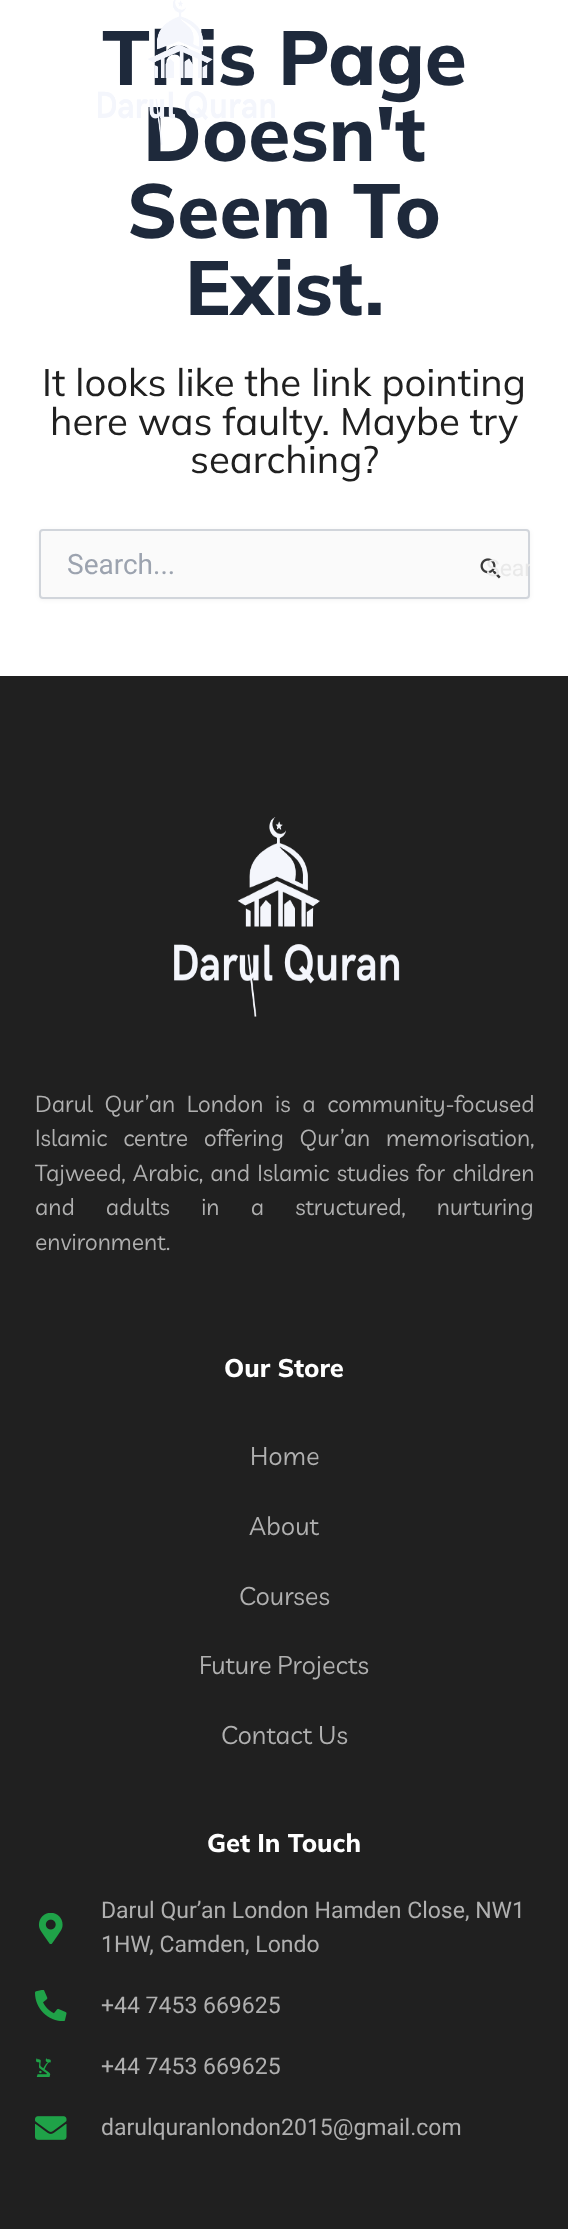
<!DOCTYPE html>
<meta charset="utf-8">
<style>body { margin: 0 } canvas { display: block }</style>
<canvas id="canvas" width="568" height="2229"></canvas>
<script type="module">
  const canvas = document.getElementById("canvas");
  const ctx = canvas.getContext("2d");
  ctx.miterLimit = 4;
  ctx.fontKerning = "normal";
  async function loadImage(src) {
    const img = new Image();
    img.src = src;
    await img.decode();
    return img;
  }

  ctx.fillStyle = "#ffffff";
  ctx.fillRect(0, 0, 568, 2229);
  ctx.font = "800 76.5px Mulish";
  ctx.fillStyle = "#1e293b";
  ctx.fillText("This Page", 102, 85);
  ctx.fillText("Doesn't", 143, 161);
  ctx.drawImage(await loadImage("img1.png"), 98, 0, 177, 145);
  ctx.fillText("Seem To", 127, 238);
  ctx.fillText("Exist.", 185, 315);
  ctx.font = "38.25px Mulish";
  ctx.fillStyle = "#202020";
  ctx.fillText("It looks like the link pointing", 42, 396);
  ctx.fillText("here was faulty. Maybe try", 50, 435);
  ctx.fillText("searching?", 190, 473);
  ctx.fillStyle = "rgba(0, 0, 0, 0.05)";
  ctx.filter = "blur(2px)";
  ctx.beginPath();
  ctx.roundRect(39, 530, 491, 70, 4);
  ctx.fill();
  ctx.filter = "none";
  ctx.fillStyle = "#fafafa";
  ctx.beginPath();
  ctx.roundRect(40, 530, 489, 68, 3);
  ctx.fill();
  ctx.strokeStyle = "#d1d5db";
  ctx.lineWidth = 2;
  ctx.stroke();
  ctx.font = "28px Roboto";
  ctx.fillStyle = "#9ca3af";
  ctx.fillText("Search...", 67, 574);
  ctx.drawImage(await loadImage("img2.png"), 480, 558, 21, 21);
  ctx.save();
  ctx.beginPath();
  ctx.roundRect(452, 529, 78, 80, 4);
  ctx.clip();
  ctx.font = "23px Roboto";
  ctx.fillStyle = "#e9e9e9";
  ctx.fillText("Sear", 486, 576);
  ctx.restore();
  ctx.fillStyle = "#202020";
  ctx.fillRect(0, 676, 568, 1553);
  ctx.drawImage(await loadImage("img3.png"), 174, 817, 226, 200);
  ctx.wordSpacing = "6.5px";
  ctx.font = "23px Livvic";
  ctx.fillStyle = "#b0b0b0";
  ctx.fillText("Darul Qur’an London is a community-focused", 35, 1112);
  ctx.wordSpacing = "10.5px";
  ctx.fillText("Islamic centre offering Qur’an memorisation,", 35, 1146);
  ctx.wordSpacing = "2px";
  ctx.fillText("Tajweed, Arabic, and Islamic studies for children", 35, 1181);
  ctx.wordSpacing = "26px";
  ctx.fillText("and adults in a structured, nurturing", 35, 1215);
  ctx.wordSpacing = "0px";
  ctx.fillText("environment.", 35, 1250);
  ctx.font = "800 25.5px Mulish";
  ctx.fillStyle = "#ffffff";
  ctx.fillText("Our Store", 224, 1377);
  ctx.font = "25.5px Livvic";
  ctx.fillStyle = "#b0b0b0";
  ctx.fillText("Home", 250, 1465);
  ctx.fillText("About", 249, 1535);
  ctx.fillText("Courses", 239, 1605);
  ctx.fillText("Future Projects", 199, 1674);
  ctx.fillText("Contact Us", 221, 1744);
  ctx.font = "800 25.5px Mulish";
  ctx.fillStyle = "#ffffff";
  ctx.fillText("Get In Touch", 207, 1852);
  ctx.drawImage(await loadImage("img4.png"), 38, 1913, 25, 31);
  ctx.font = "23px Roboto";
  ctx.fillStyle = "#b0b0b0";
  ctx.fillText("Darul Qur’an London Hamden Close, NW1", 101, 1918);
  ctx.fillText("1HW, Camden, Londo", 101, 1952);
  ctx.drawImage(await loadImage("img5.png"), 35, 1990, 32, 31);
  ctx.fillText("+44 7453 669625", 101, 2013);
  ctx.direction = "rtl";
  ctx.font = "32px Liberation Serif";
  ctx.fillStyle = "#1fa248";
  ctx.fillText("צּ", 52, 2077);
  ctx.direction = "ltr";
  ctx.font = "23px Roboto";
  ctx.fillStyle = "#b0b0b0";
  ctx.fillText("+44 7453 669625", 101, 2074);
  ctx.drawImage(await loadImage("img6.png"), 35, 2116, 32, 24);
  ctx.fillText("darulquranlondon2015@gmail.com", 101, 2135);
</script>
